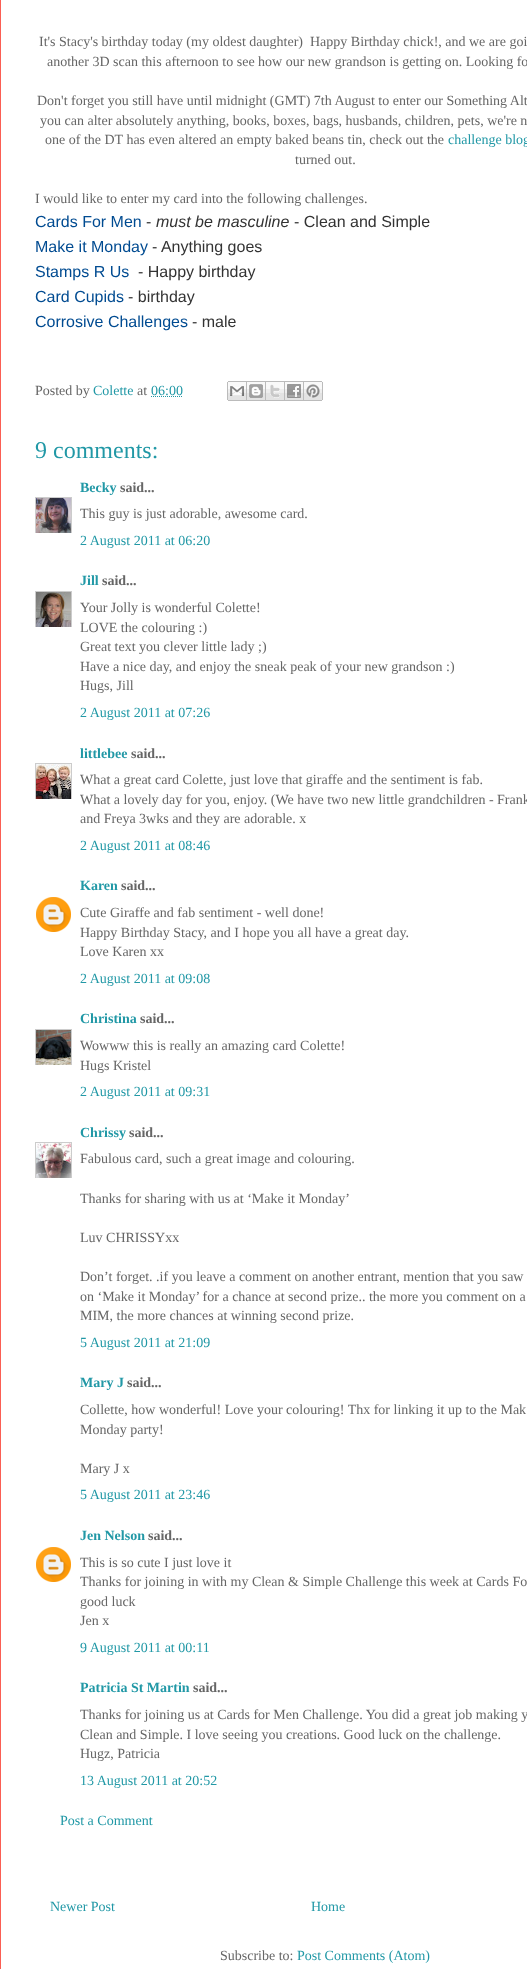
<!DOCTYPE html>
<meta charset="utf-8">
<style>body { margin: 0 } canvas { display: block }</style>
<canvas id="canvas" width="527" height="1969"></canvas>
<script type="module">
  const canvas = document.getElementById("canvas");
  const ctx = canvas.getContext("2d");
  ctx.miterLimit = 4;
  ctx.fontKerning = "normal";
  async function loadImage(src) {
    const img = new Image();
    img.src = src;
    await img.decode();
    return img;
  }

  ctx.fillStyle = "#ffffff";
  ctx.fillRect(0, 0, 527, 1969);
  ctx.fillStyle = "#fb5e53";
  ctx.fillRect(0, 0, 1, 1969);
  ctx.font = "14px Liberation Serif";
  ctx.fillStyle = "#666666";
  ctx.fillText("It's Stacy's birthday today (my oldest daughter)  Happy Birthday chick!, and we are goi", 39, 46);
  ctx.fillText("another 3D scan this afternoon to see how our new grandson is getting on. Looking fo", 47, 66);
  ctx.fillText("Don't forget you still have until midnight (GMT) 7th August to enter our Something Alt", 37, 105);
  ctx.fillText("you can alter absolutely anything, books, boxes, bags, husbands, children, pets, we're n", 40, 125);
  ctx.fillText("one of the DT has even altered an empty baked beans tin, check out the", 45, 144);
  ctx.fillStyle = "#2198a6";
  ctx.fillText("challenge blog", 448, 144);
  ctx.fillStyle = "#666666";
  ctx.fillText("turned out.", 295, 164);
  ctx.fillText("I would like to enter my card into the following challenges.", 35, 203);
  ctx.font = "16px Liberation Sans";
  ctx.fillStyle = "#004b91";
  ctx.fillText("Cards For Men", 35, 227);
  ctx.fillStyle = "#333333";
  ctx.fillText("-", 146, 227);
  ctx.font = "italic 16px Liberation Sans";
  ctx.fillText("must be masculine", 156, 227);
  ctx.font = "16px Liberation Sans";
  ctx.fillText("- Clean and Simple", 294, 227);
  ctx.fillStyle = "#004b91";
  ctx.fillText("Make it Monday", 35, 252);
  ctx.fillStyle = "#333333";
  ctx.fillText("- Anything goes", 152, 252);
  ctx.fillStyle = "#004b91";
  ctx.fillText("Stamps R Us", 35, 277);
  ctx.fillStyle = "#333333";
  ctx.fillText("- Happy birthday", 138, 277);
  ctx.fillStyle = "#004b91";
  ctx.fillText("Card Cupids", 35, 302);
  ctx.fillStyle = "#333333";
  ctx.fillText("- birthday", 128, 302);
  ctx.fillStyle = "#004b91";
  ctx.fillText("Corrosive Challenges", 35, 327);
  ctx.fillStyle = "#333333";
  ctx.fillText("- male", 192, 327);
  ctx.font = "14px Liberation Serif";
  ctx.fillStyle = "#666666";
  ctx.fillText("Posted by", 35, 395);
  ctx.fillStyle = "#2198a6";
  ctx.fillText("Colette", 93, 395);
  ctx.fillStyle = "#666666";
  ctx.fillText("at", 137, 395);
  ctx.fillStyle = "#2198a6";
  ctx.fillText("06:00", 151, 395);
  ctx.beginPath();
  ctx.moveTo(151, 396.5);
  ctx.lineTo(183, 396.5);
  ctx.strokeStyle = "#2198a6";
  ctx.setLineDash([1, 1]);
  ctx.stroke();
  ctx.drawImage(await loadImage("img1.png"), 227, 381, 20, 20);
  ctx.drawImage(await loadImage("img2.png"), 247, 381, 19, 20);
  ctx.drawImage(await loadImage("img3.png"), 266, 381, 19, 20);
  ctx.drawImage(await loadImage("img4.png"), 285, 381, 19, 20);
  ctx.drawImage(await loadImage("img5.png"), 304, 381, 19, 20);
  ctx.font = "24px Liberation Serif";
  ctx.fillText("9 comments:", 35, 458);
  ctx.font = "bold 14px Liberation Serif";
  ctx.fillText("Becky", 80, 492);
  ctx.fillStyle = "#666666";
  ctx.fillText("said...", 120, 492);
  ctx.save();
  ctx.beginPath();
  ctx.rect(35, 497, 37, 36);
  ctx.clip();
  ctx.strokeStyle = "#cccccc";
  ctx.setLineDash([]);
  ctx.strokeRect(35.5, 497.5, 36, 36);
  ctx.restore();
  ctx.drawImage(await loadImage("img6.png"), 36, 498, 35, 35);
  ctx.font = "14px Liberation Serif";
  ctx.fillText("This guy is just adorable, awesome card.", 80, 518);
  ctx.fillStyle = "#2198a6";
  ctx.fillText("2 August 2011 at 06:20", 80, 545);
  ctx.font = "bold 14px Liberation Serif";
  ctx.fillText("Jill", 80, 585);
  ctx.fillStyle = "#666666";
  ctx.fillText("said...", 102, 585);
  ctx.save();
  ctx.beginPath();
  ctx.rect(35, 591, 37, 36);
  ctx.clip();
  ctx.strokeStyle = "#cccccc";
  ctx.setLineDash([]);
  ctx.strokeRect(35.5, 591.5, 36, 36);
  ctx.restore();
  ctx.drawImage(await loadImage("img7.png"), 36, 592, 35, 35);
  ctx.font = "14px Liberation Serif";
  ctx.fillText("Your Jolly is wonderful Colette!", 80, 612);
  ctx.fillText("LOVE the colouring :)", 80, 632);
  ctx.fillText("Great text you clever little lady ;)", 80, 651);
  ctx.fillText("Have a nice day, and enjoy the sneak peak of your new grandson :)", 80, 671);
  ctx.fillText("Hugs, Jill", 80, 690);
  ctx.fillStyle = "#2198a6";
  ctx.fillText("2 August 2011 at 07:26", 80, 717);
  ctx.font = "bold 14px Liberation Serif";
  ctx.fillText("littlebee", 80, 758);
  ctx.fillStyle = "#666666";
  ctx.fillText("said...", 131, 758);
  ctx.save();
  ctx.beginPath();
  ctx.rect(35, 763, 37, 36);
  ctx.clip();
  ctx.strokeStyle = "#cccccc";
  ctx.setLineDash([]);
  ctx.strokeRect(35.5, 763.5, 36, 36);
  ctx.restore();
  ctx.drawImage(await loadImage("img8.png"), 36, 764, 35, 35);
  ctx.font = "14px Liberation Serif";
  ctx.fillText("What a great card Colette, just love that giraffe and the sentiment is fab.", 80, 784);
  ctx.fillText("What a lovely day for you, enjoy. (We have two new little grandchildren - Frank", 80, 804);
  ctx.fillText("and Freya 3wks and they are adorable. x", 80, 823);
  ctx.fillStyle = "#2198a6";
  ctx.fillText("2 August 2011 at 08:46", 80, 850);
  ctx.font = "bold 14px Liberation Serif";
  ctx.fillText("Karen", 80, 890);
  ctx.fillStyle = "#666666";
  ctx.fillText("said...", 121, 890);
  ctx.drawImage(await loadImage("img9.png"), 36, 897, 35, 35);
  ctx.font = "14px Liberation Serif";
  ctx.fillText("Cute Giraffe and fab sentiment - well done!", 80, 917);
  ctx.fillText("Happy Birthday Stacy, and I hope you all have a great day.", 80, 937);
  ctx.fillText("Love Karen xx", 80, 956);
  ctx.fillStyle = "#2198a6";
  ctx.fillText("2 August 2011 at 09:08", 80, 983);
  ctx.font = "bold 14px Liberation Serif";
  ctx.fillText("Christina", 80, 1023);
  ctx.fillStyle = "#666666";
  ctx.fillText("said...", 140, 1023);
  ctx.save();
  ctx.beginPath();
  ctx.rect(35, 1029, 37, 36);
  ctx.clip();
  ctx.strokeStyle = "#cccccc";
  ctx.setLineDash([]);
  ctx.strokeRect(35.5, 1029.5, 36, 36);
  ctx.restore();
  ctx.drawImage(await loadImage("img10.png"), 36, 1030, 35, 35);
  ctx.font = "14px Liberation Serif";
  ctx.fillText("Wowww this is really an amazing card Colette!", 80, 1050);
  ctx.fillText("Hugs Kristel", 80, 1070);
  ctx.fillStyle = "#2198a6";
  ctx.fillText("2 August 2011 at 09:31", 80, 1096);
  ctx.font = "bold 14px Liberation Serif";
  ctx.fillText("Chrissy", 80, 1137);
  ctx.fillStyle = "#666666";
  ctx.fillText("said...", 129, 1137);
  ctx.save();
  ctx.beginPath();
  ctx.rect(35, 1142, 37, 36);
  ctx.clip();
  ctx.strokeStyle = "#cccccc";
  ctx.setLineDash([]);
  ctx.strokeRect(35.5, 1142.5, 36, 36);
  ctx.restore();
  ctx.drawImage(await loadImage("img11.png"), 36, 1143, 35, 35);
  ctx.font = "14px Liberation Serif";
  ctx.fillText("Fabulous card, such a great image and colouring.", 80, 1163);
  ctx.fillText("Thanks for sharing with us at ‘Make it Monday’", 80, 1203);
  ctx.fillText("Luv CHRISSYxx", 80, 1242);
  ctx.fillText("Don’t forget. .if you leave a comment on another entrant, mention that you saw", 80, 1281);
  ctx.fillText("on ‘Make it Monday’ for a chance at second prize.. the more you comment on a", 80, 1301);
  ctx.fillText("MIM, the more chances at winning second prize.", 80, 1320);
  ctx.fillStyle = "#2198a6";
  ctx.fillText("5 August 2011 at 21:09", 80, 1347);
  ctx.font = "bold 14px Liberation Serif";
  ctx.fillText("Mary J", 80, 1387);
  ctx.fillStyle = "#666666";
  ctx.fillText("said...", 127, 1387);
  ctx.font = "14px Liberation Serif";
  ctx.fillText("Collette, how wonderful! Love your colouring! Thx for linking it up to the Mak", 80, 1414);
  ctx.fillText("Monday party!", 80, 1434);
  ctx.fillText("Mary J x", 80, 1473);
  ctx.fillStyle = "#2198a6";
  ctx.fillText("5 August 2011 at 23:46", 80, 1499);
  ctx.font = "bold 14px Liberation Serif";
  ctx.fillText("Jen Nelson", 80, 1540);
  ctx.fillStyle = "#666666";
  ctx.fillText("said...", 148, 1540);
  ctx.drawImage(await loadImage("img9.png"), 36, 1547, 35, 35);
  ctx.font = "14px Liberation Serif";
  ctx.fillText("This is so cute I just love it", 80, 1567);
  ctx.fillText("Thanks for joining in with my Clean & Simple Challenge this week at Cards Fo", 80, 1586);
  ctx.fillText("good luck", 80, 1606);
  ctx.fillText("Jen x", 80, 1625);
  ctx.fillStyle = "#2198a6";
  ctx.fillText("9 August 2011 at 00:11", 80, 1652);
  ctx.font = "bold 14px Liberation Serif";
  ctx.fillText("Patricia St Martin", 80, 1692);
  ctx.fillStyle = "#666666";
  ctx.fillText("said...", 193, 1692);
  ctx.font = "14px Liberation Serif";
  ctx.fillText("Thanks for joining us at Cards for Men Challenge. You did a great job making y", 80, 1719);
  ctx.fillText("Clean and Simple. I love seeing you creations. Good luck on the challenge.", 80, 1739);
  ctx.fillText("Hugz, Patricia", 80, 1758);
  ctx.fillStyle = "#2198a6";
  ctx.fillText("13 August 2011 at 20:52", 80, 1785);
  ctx.fillText("Post a Comment", 60, 1825);
  ctx.fillText("Newer Post", 50, 1911);
  ctx.fillText("Home", 311, 1911);
  ctx.fillStyle = "#666666";
  ctx.fillText("Subscribe to:", 220, 1960);
  ctx.fillStyle = "#2198a6";
  ctx.fillText("Post Comments (Atom)", 297, 1960);
</script>
